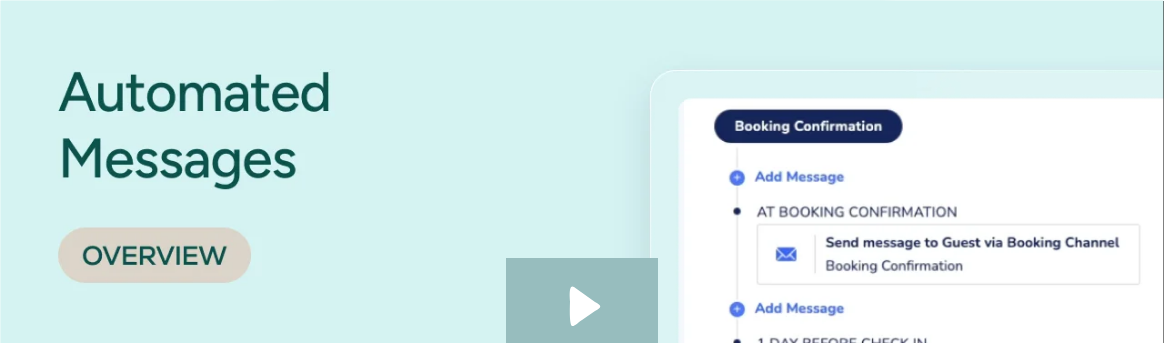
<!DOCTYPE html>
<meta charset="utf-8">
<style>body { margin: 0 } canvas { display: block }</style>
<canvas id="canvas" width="1164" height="343"></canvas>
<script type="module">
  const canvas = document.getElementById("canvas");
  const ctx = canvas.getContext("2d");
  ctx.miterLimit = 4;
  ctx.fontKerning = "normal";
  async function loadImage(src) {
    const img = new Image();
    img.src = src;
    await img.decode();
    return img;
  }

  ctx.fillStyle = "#ffffff";
  ctx.fillRect(0, 0, 1164, 343);
  ctx.drawImage(await loadImage("img3.png"), 269, 0, 626, 1);
  ctx.drawImage(await loadImage("img1.png"), 0, 0, 1164, 343);
  ctx.fillStyle = "#000000";
  ctx.fillRect(1163, 1, 1, 342);
  ctx.drawImage(await loadImage("img2.png"), 0, 0, 1164, 343);
  ctx.fillStyle = "#97bdbe";
  ctx.fillRect(506, 258, 152, 85);
  ctx.fillStyle = "#ffffff";
  ctx.beginPath();
  ctx.moveTo(574, 287);
  ctx.bezierCurveTo(568, 283, 570, 300, 570, 301);
  ctx.bezierCurveTo(570, 304, 569, 324, 572, 326);
  ctx.bezierCurveTo(574, 327, 580, 321, 582, 320);
  ctx.lineTo(595, 311);
  ctx.bezierCurveTo(602, 307, 602, 306, 595, 302);
  ctx.closePath();
  ctx.fill("evenodd");
</script>
